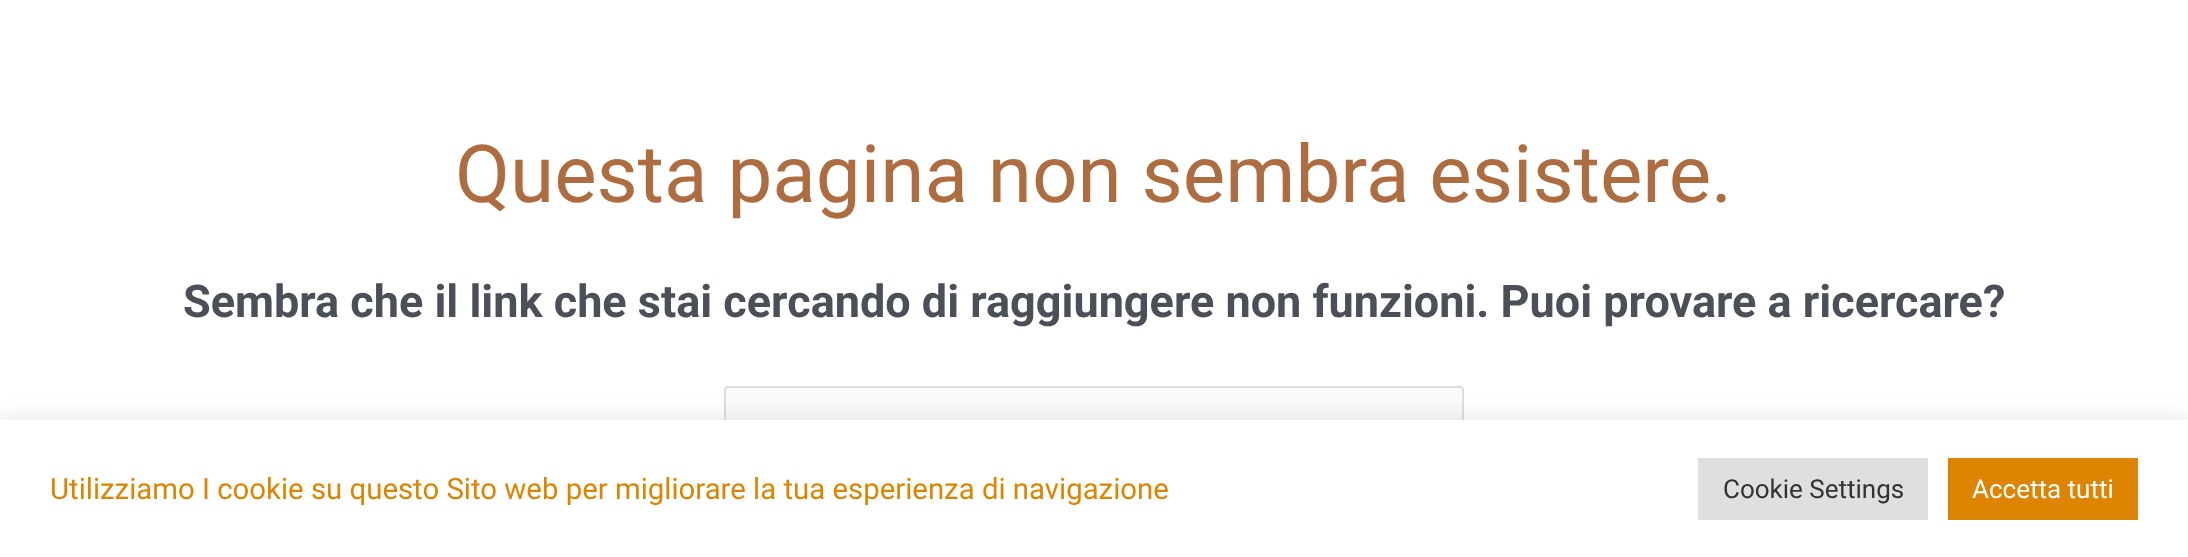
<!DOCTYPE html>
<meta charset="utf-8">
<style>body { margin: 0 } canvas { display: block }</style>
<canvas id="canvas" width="2188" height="557"></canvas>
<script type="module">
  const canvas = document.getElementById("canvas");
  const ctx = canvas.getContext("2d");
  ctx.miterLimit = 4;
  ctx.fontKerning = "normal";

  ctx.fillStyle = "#ffffff";
  ctx.fillRect(0, 0, 2188, 557);
  ctx.font = "80px Roboto";
  ctx.fillStyle = "#ae6d41";
  ctx.fillText("Questa pagina non sembra esistere.", 455, 202);
  ctx.font = "bold 45px Roboto";
  ctx.fillStyle = "#4b4f58";
  ctx.fillText("Sembra che il link che stai cercando di raggiungere non funzioni. Puoi provare a ricercare?", 183, 317);
  ctx.fillStyle = "#fafafa";
  ctx.beginPath();
  ctx.roundRect(725, 387, 738, 114, 3);
  ctx.fill();
  ctx.strokeStyle = "#dddddd";
  ctx.lineWidth = 2;
  ctx.stroke();
  ctx.fillStyle = "rgba(172, 171, 171, 0.3)";
  ctx.filter = "blur(10px)";
  ctx.beginPath();
  ctx.rect(0, 418, 2188, 138);
  ctx.fill();
  ctx.filter = "none";
  ctx.fillStyle = "#ffffff";
  ctx.fillRect(0, 420, 2188, 137);
  ctx.font = "29.35px Roboto";
  ctx.fillStyle = "#dd8500";
  ctx.fillText("Utilizziamo I cookie su questo Sito web per migliorare la tua esperienza di navigazione", 50, 499);
  ctx.fillStyle = "#dedfe0";
  ctx.fillRect(1698, 458, 230, 62);
  ctx.font = "26px Roboto";
  ctx.fillStyle = "#333333";
  ctx.fillText("Cookie Settings", 1723, 498);
  ctx.fillStyle = "#dd8502";
  ctx.fillRect(1948, 458, 190, 62);
  ctx.fillStyle = "#ffffff";
  ctx.fillText("Accetta tutti", 1972, 498);
</script>
